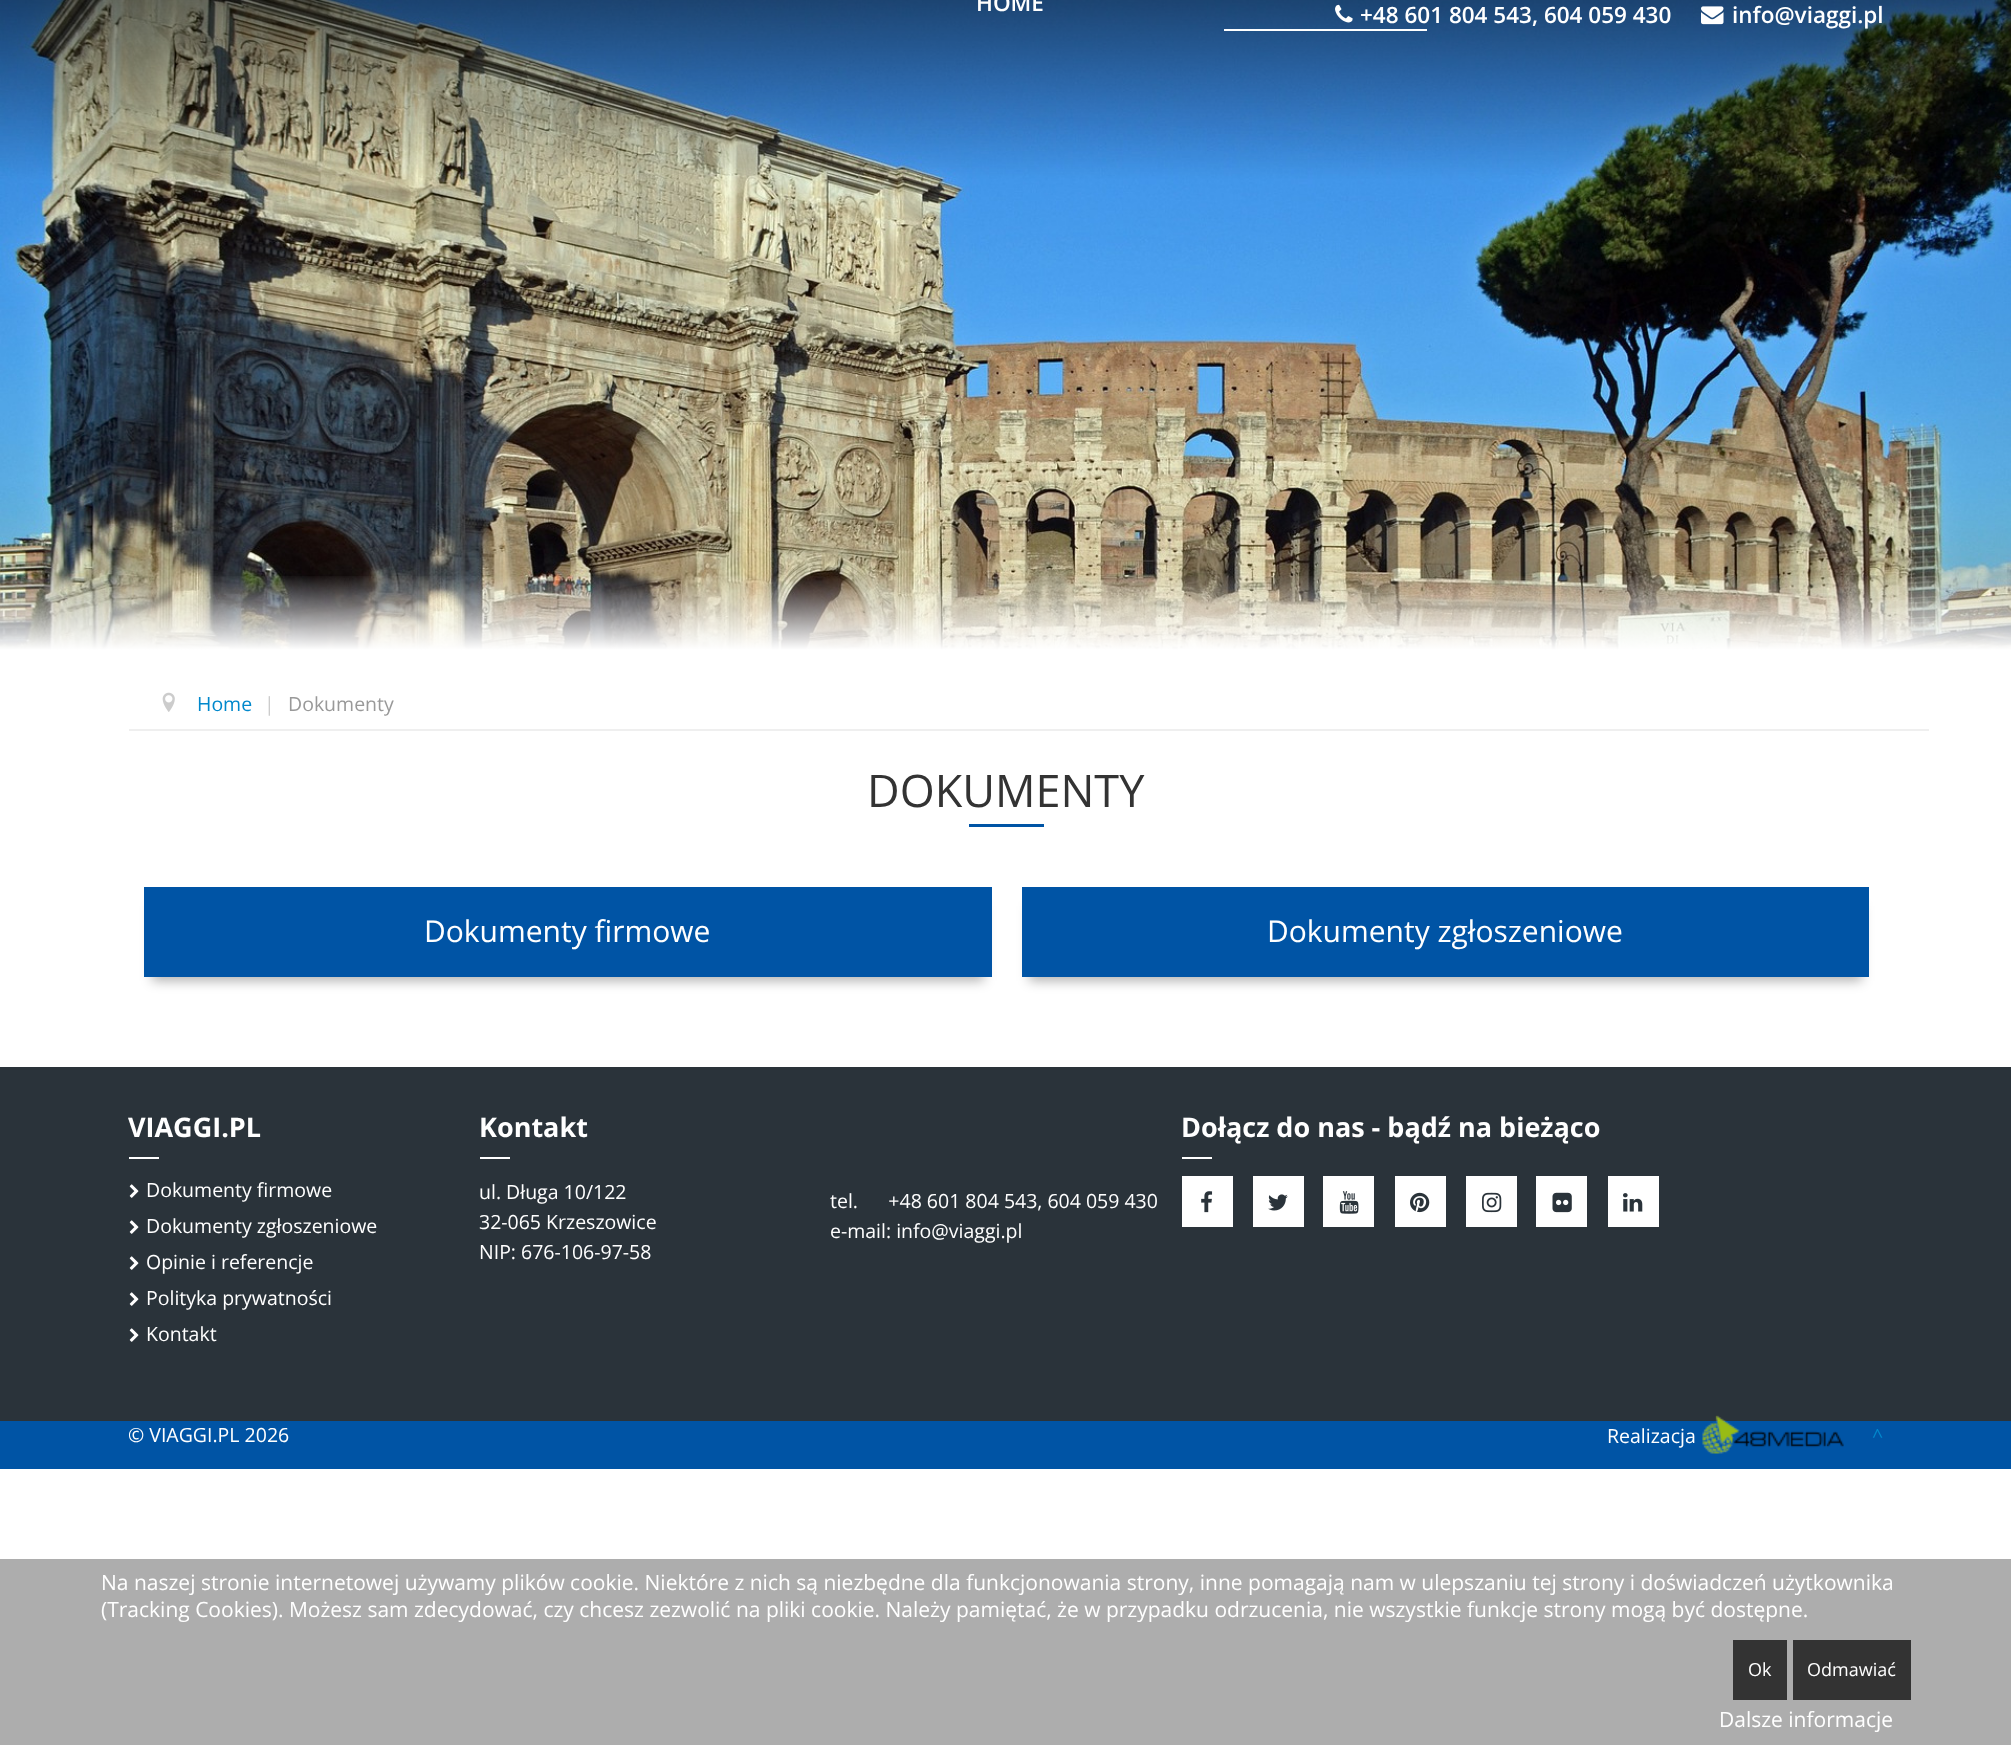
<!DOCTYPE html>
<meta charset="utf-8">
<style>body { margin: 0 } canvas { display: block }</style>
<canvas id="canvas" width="2011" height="1745"></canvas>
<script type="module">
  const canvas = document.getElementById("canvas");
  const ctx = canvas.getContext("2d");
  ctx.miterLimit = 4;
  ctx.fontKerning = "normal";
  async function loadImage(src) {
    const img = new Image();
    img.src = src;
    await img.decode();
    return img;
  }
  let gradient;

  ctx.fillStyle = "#ffffff";
  ctx.fillRect(0, 0, 2011, 1745);
  ctx.drawImage(await loadImage("img3.png"), 0, 0, 2011, 650);
  ctx.font = "600 22.5px Open Sans";
  ctx.fillText("HOME", 976, 11);
  ctx.fillRect(1224, 29, 203, 2);
  ctx.drawImage(await loadImage("img1.png"), 1335, 4, 18, 19);
  ctx.fillText("+48 601 804 543, 604 059 430", 1360, 23);
  ctx.drawImage(await loadImage("img2.png"), 1701, 6, 23, 19);
  ctx.fillText("info@viaggi.pl", 1732, 23);
  gradient = ctx.createLinearGradient(1006, 574, 1006, 650);
  gradient.addColorStop(0, "rgba(255, 255, 255, 0)");
  gradient.addColorStop(1, "#ffffff");
  ctx.fillStyle = gradient;
  ctx.fillRect(0, 576, 2011, 74);
  ctx.fillStyle = "#efefef";
  ctx.fillRect(129, 729, 1800, 2);
  ctx.drawImage(await loadImage("img4.png"), 162, 692, 13, 20);
  ctx.font = "19.5px Open Sans";
  ctx.fillStyle = "#0088cc";
  ctx.fillText("Home", 197, 711);
  ctx.fillStyle = "#cccccc";
  ctx.fillText("|", 264, 711);
  ctx.fillStyle = "#999999";
  ctx.fillText("Dokumenty", 288, 711);
  ctx.font = "45px Open Sans";
  ctx.fillStyle = "#333333";
  ctx.fillText("DOKUMENTY", 867, 807);
  ctx.fillStyle = "#0054a5";
  ctx.fillRect(969, 824, 75, 3);
  ctx.fillStyle = "rgba(0, 0, 0, 0.3)";
  ctx.filter = "blur(6px)";
  ctx.beginPath();
  ctx.rect(152, 906, 832, 75);
  ctx.fill();
  ctx.filter = "none";
  ctx.fillStyle = "#0054a5";
  ctx.fillRect(144, 887, 848, 90);
  ctx.font = "30px Open Sans";
  ctx.fillStyle = "#ffffff";
  ctx.fillText("Dokumenty firmowe", 424, 942);
  ctx.fillStyle = "rgba(0, 0, 0, 0.3)";
  ctx.filter = "blur(6px)";
  ctx.beginPath();
  ctx.rect(1029, 906, 833, 75);
  ctx.fill();
  ctx.filter = "none";
  ctx.fillStyle = "#0054a5";
  ctx.fillRect(1022, 887, 847, 90);
  ctx.fillStyle = "#ffffff";
  ctx.fillText("Dokumenty zgłoszeniowe", 1267, 942);
  ctx.fillStyle = "#2a333a";
  ctx.fillRect(0, 1067, 2011, 354);
  ctx.font = "bold 27px Open Sans";
  ctx.fillStyle = "#ffffff";
  ctx.fillText("VIAGGI.PL", 128, 1137);
  ctx.fillRect(129, 1157, 30, 2);
  ctx.drawImage(await loadImage("img5.png"), 129, 1184, 10, 14);
  ctx.font = "19.5px Open Sans";
  ctx.fillText("Dokumenty firmowe", 146, 1197);
  ctx.drawImage(await loadImage("img5.png"), 129, 1220, 10, 14);
  ctx.fillText("Dokumenty zgłoszeniowe", 146, 1233);
  ctx.drawImage(await loadImage("img5.png"), 129, 1256, 10, 14);
  ctx.fillText("Opinie i referencje", 146, 1269);
  ctx.drawImage(await loadImage("img5.png"), 129, 1292, 10, 14);
  ctx.fillText("Polityka prywatności", 146, 1305);
  ctx.drawImage(await loadImage("img5.png"), 129, 1328, 10, 14);
  ctx.fillText("Kontakt", 146, 1341);
  ctx.font = "bold 27px Open Sans";
  ctx.fillText("Kontakt", 479, 1137);
  ctx.fillRect(480, 1157, 30, 2);
  ctx.font = "19.5px Open Sans";
  ctx.fillText("ul. Długa 10/122", 479, 1199);
  ctx.fillText("32-065 Krzeszowice", 479, 1229);
  ctx.fillText("NIP: 676-106-97-58", 479, 1259);
  ctx.fillText("tel.      +48 601 804 543, 604 059 430", 830, 1208);
  ctx.fillText("e-mail: info@viaggi.pl", 830, 1238);
  ctx.font = "bold 27px Open Sans";
  ctx.fillText("Dołącz do nas - bądź na bieżąco", 1181, 1137);
  ctx.fillRect(1182, 1157, 30, 2);
  ctx.fillRect(1182, 1176, 51, 51);
  ctx.drawImage(await loadImage("img6.png"), 1201, 1191, 12, 22);
  ctx.fillRect(1253, 1176, 51, 51);
  ctx.drawImage(await loadImage("img7.png"), 1268, 1194, 20, 17);
  ctx.fillRect(1323, 1176, 51, 51);
  ctx.drawImage(await loadImage("img8.png"), 1339, 1191, 20, 23);
  ctx.fillRect(1395, 1176, 51, 51);
  ctx.drawImage(await loadImage("img9.png"), 1410, 1192, 20, 21);
  ctx.fillRect(1466, 1176, 51, 51);
  ctx.drawImage(await loadImage("img10.png"), 1482, 1192, 20, 21);
  ctx.fillRect(1536, 1176, 51, 51);
  ctx.drawImage(await loadImage("img11.png"), 1552, 1192, 20, 21);
  ctx.fillRect(1608, 1176, 51, 51);
  ctx.drawImage(await loadImage("img12.png"), 1623, 1193, 20, 19);
  ctx.fillStyle = "#0054a5";
  ctx.fillRect(0, 1421, 2011, 48);
  ctx.font = "19.5px Open Sans";
  ctx.fillStyle = "#ffffff";
  ctx.fillText("© VIAGGI.PL 2026", 128, 1442);
  ctx.fillText("Realizacja", 1607, 1443);
  ctx.drawImage(await loadImage("img13.png"), 1702, 1415, 142, 39);
  ctx.fillStyle = "#0088cc";
  ctx.fillText("^", 1872, 1443);
  ctx.fillStyle = "#adadad";
  ctx.fillRect(0, 1559, 2011, 186);
  ctx.font = "21px Open Sans";
  ctx.fillStyle = "#ffffff";
  ctx.fillText("Na naszej stronie internetowej używamy plików cookie. Niektóre z nich są niezbędne dla funkcjonowania strony, inne pomagają nam w ulepszaniu tej strony i doświadczeń użytkownika", 101, 1590);
  ctx.fillText("(Tracking Cookies). Możesz sam zdecydować, czy chcesz zezwolić na pliki cookie. Należy pamiętać, że w przypadku odrzucenia, nie wszystkie funkcje strony mogą być dostępne.", 101, 1617);
  ctx.fillStyle = "#333333";
  ctx.fillRect(1733, 1640, 54, 60);
  ctx.font = "18px Open Sans";
  ctx.fillStyle = "#ffffff";
  ctx.fillText("Ok", 1748, 1676);
  ctx.fillStyle = "#333333";
  ctx.fillRect(1793, 1640, 118, 60);
  ctx.fillStyle = "#ffffff";
  ctx.fillText("Odmawiać", 1807, 1676);
  ctx.font = "21px Open Sans";
  ctx.fillText("Dalsze informacje", 1719, 1727);
</script>
